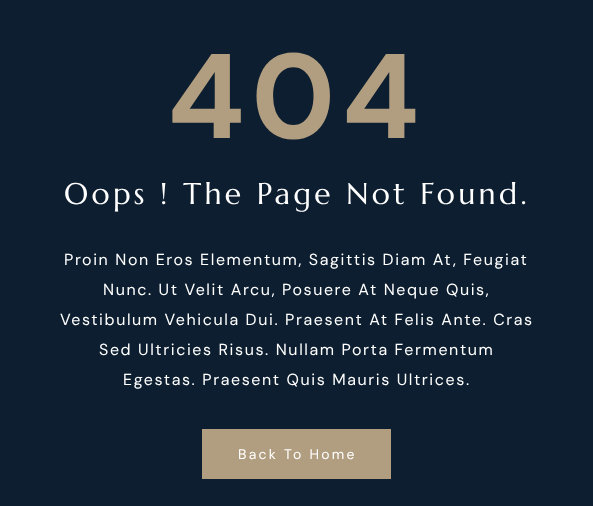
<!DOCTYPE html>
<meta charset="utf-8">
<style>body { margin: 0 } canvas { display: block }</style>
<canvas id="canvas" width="593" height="506"></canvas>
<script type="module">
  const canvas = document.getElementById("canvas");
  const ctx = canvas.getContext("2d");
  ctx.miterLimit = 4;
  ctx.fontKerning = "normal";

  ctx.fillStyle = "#0c1e2f";
  ctx.fillRect(0, 0, 593, 506);
  ctx.letterSpacing = "6px";
  ctx.font = "bold 120px DM Sans";
  ctx.fillStyle = "#b19d7f";
  ctx.fillText("404", 167, 138);
  ctx.letterSpacing = "3.35px";
  ctx.font = "30px Marcellus";
  ctx.fillStyle = "#ffffff";
  ctx.fillText("Oops ! The Page Not Found.", 64, 204);
  ctx.letterSpacing = "1.6px";
  ctx.font = "16px DM Sans";
  ctx.fillText("Proin Non Eros Elementum, Sagittis Diam At, Feugiat", 64, 265);
  ctx.fillText("Nunc. Ut Velit Arcu, Posuere At Neque Quis,", 103, 295);
  ctx.fillText("Vestibulum Vehicula Dui. Praesent At Felis Ante. Cras", 60, 325);
  ctx.fillText("Sed Ultricies Risus. Nullam Porta Fermentum", 99, 355);
  ctx.fillText("Egestas. Praesent Quis Mauris Ultrices.", 123, 385);
  ctx.fillStyle = "#b19d7f";
  ctx.fillRect(202, 429, 189, 50);
  ctx.letterSpacing = "2.25px";
  ctx.font = "14px DM Sans";
  ctx.fillStyle = "#ffffff";
  ctx.fillText("Back To Home", 238, 459);
</script>
